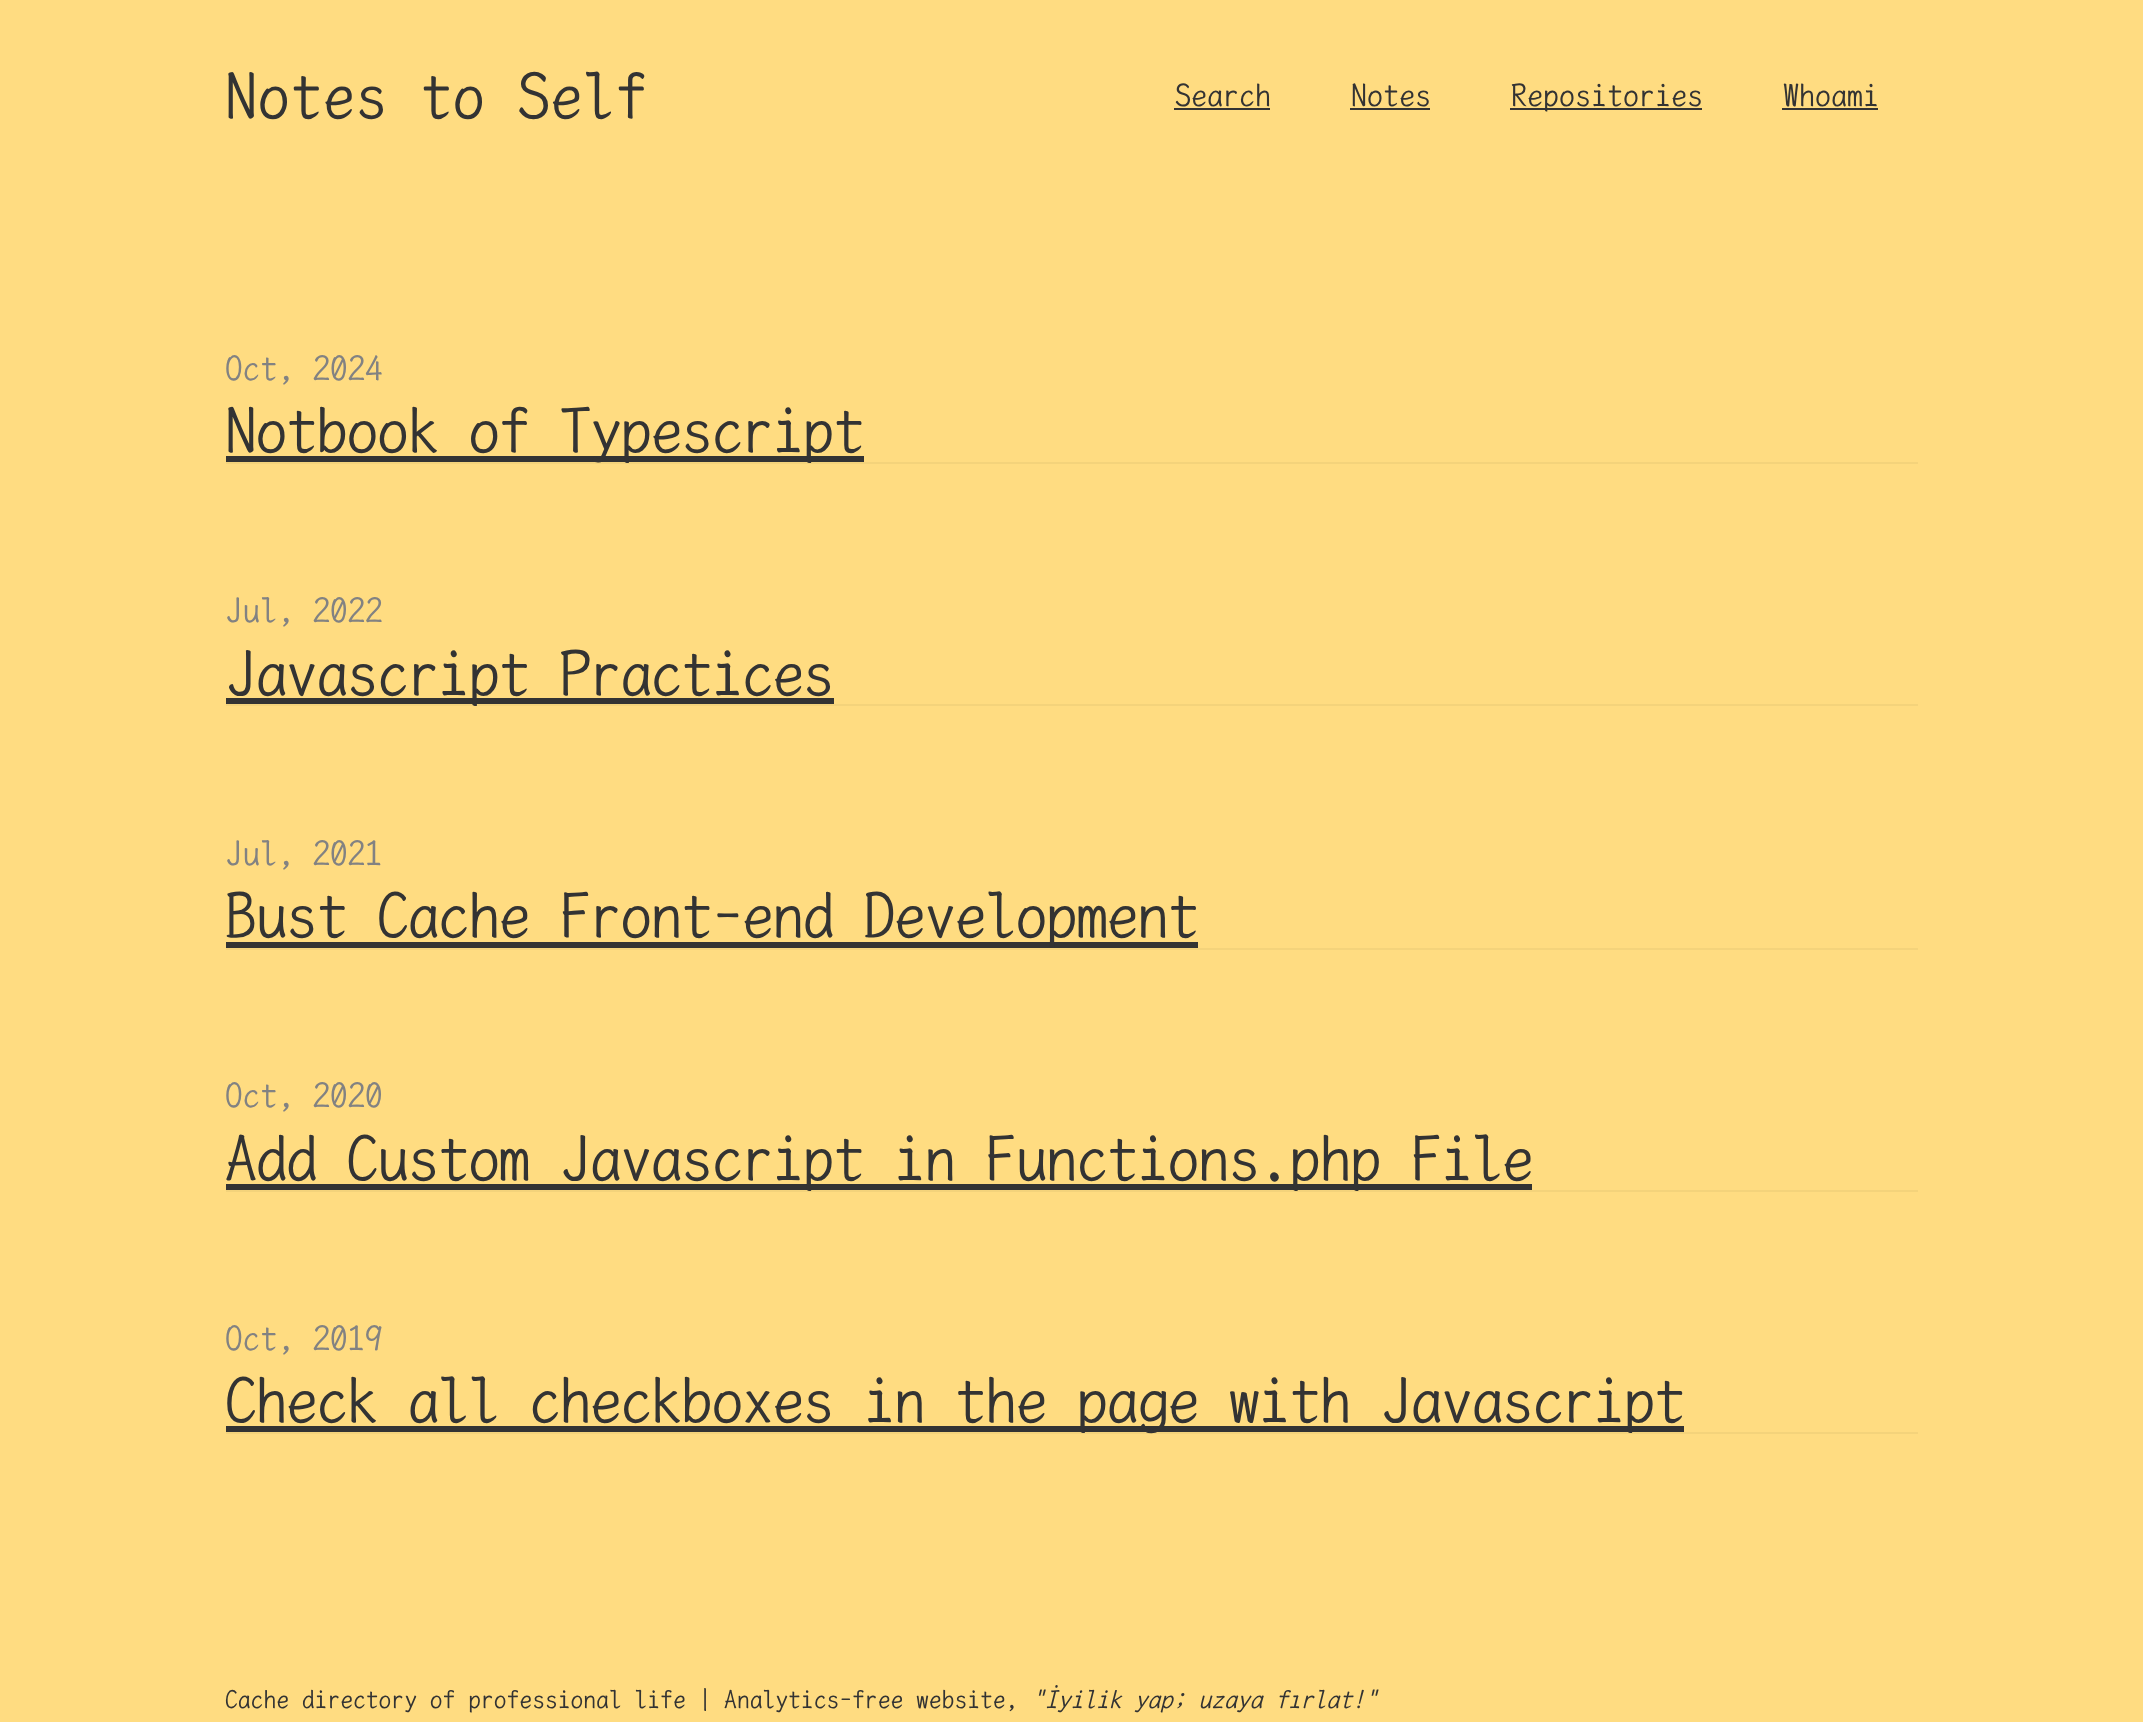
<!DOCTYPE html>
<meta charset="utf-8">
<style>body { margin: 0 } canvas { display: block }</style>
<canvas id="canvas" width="2143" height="1722"></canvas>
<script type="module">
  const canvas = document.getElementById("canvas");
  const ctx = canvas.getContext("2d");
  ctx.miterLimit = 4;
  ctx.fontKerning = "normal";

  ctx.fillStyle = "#ffdc81";
  ctx.fillRect(0, 0, 2143, 1722);
  ctx.font = "65px LXGW WenKai Mono TC";
  ctx.fillStyle = "#333333";
  ctx.fillText("Notes to Self", 225, 118);
  ctx.font = "32px LXGW WenKai Mono TC";
  ctx.fillText("Search", 1175, 106);
  ctx.fillRect(1174, 108, 96, 2);
  ctx.fillText("Notes", 1351, 106);
  ctx.fillRect(1350, 108, 80, 2);
  ctx.fillRect(1510, 108, 192, 2);
  ctx.fillText("Repositories", 1511, 106);
  ctx.fillText("Whoami", 1783, 106);
  ctx.fillRect(1782, 108, 96, 2);
  ctx.font = "35px LXGW WenKai Mono TC";
  ctx.fillStyle = "#828282";
  ctx.fillText("Oct, 2024", 225, 380);
  ctx.fillStyle = "#f4d37b";
  ctx.fillRect(226, 462, 1692, 2);
  ctx.fillStyle = "#333333";
  ctx.fillRect(226, 456, 638, 6);
  ctx.letterSpacing = "-1.6px";
  ctx.font = "64px LXGW WenKai Mono TC";
  ctx.fillText("Notbook of Typescript", 225, 452);
  ctx.letterSpacing = "0px";
  ctx.font = "35px LXGW WenKai Mono TC";
  ctx.fillStyle = "#828282";
  ctx.fillText("Jul, 2022", 225, 622);
  ctx.fillStyle = "#f4d37b";
  ctx.fillRect(226, 704, 1692, 2);
  ctx.fillStyle = "#333333";
  ctx.fillRect(226, 698, 608, 6);
  ctx.letterSpacing = "-1.6px";
  ctx.font = "64px LXGW WenKai Mono TC";
  ctx.fillText("Javascript Practices", 225, 695);
  ctx.letterSpacing = "0px";
  ctx.font = "35px LXGW WenKai Mono TC";
  ctx.fillStyle = "#828282";
  ctx.fillText("Jul, 2021", 225, 865);
  ctx.fillStyle = "#f4d37b";
  ctx.fillRect(226, 948, 1692, 2);
  ctx.fillStyle = "#333333";
  ctx.fillRect(226, 942, 972, 6);
  ctx.letterSpacing = "-1.6px";
  ctx.font = "64px LXGW WenKai Mono TC";
  ctx.fillText("Bust Cache Front-end Development", 225, 937);
  ctx.letterSpacing = "0px";
  ctx.font = "35px LXGW WenKai Mono TC";
  ctx.fillStyle = "#828282";
  ctx.fillText("Oct, 2020", 225, 1107);
  ctx.fillStyle = "#f4d37b";
  ctx.fillRect(226, 1190, 1692, 2);
  ctx.fillStyle = "#333333";
  ctx.fillRect(226, 1184, 1306, 6);
  ctx.letterSpacing = "-1.6px";
  ctx.font = "64px LXGW WenKai Mono TC";
  ctx.fillText("Add Custom Javascript in Functions.php File", 225, 1180);
  ctx.letterSpacing = "0px";
  ctx.font = "35px LXGW WenKai Mono TC";
  ctx.fillStyle = "#828282";
  ctx.fillText("Oct, 2019", 225, 1350);
  ctx.fillStyle = "#f4d37b";
  ctx.fillRect(226, 1432, 1692, 2);
  ctx.fillStyle = "#333333";
  ctx.fillRect(226, 1426, 1458, 6);
  ctx.letterSpacing = "-1.6px";
  ctx.font = "64px LXGW WenKai Mono TC";
  ctx.fillText("Check all checkboxes in the page with Javascript", 225, 1422);
  ctx.letterSpacing = "0px";
  ctx.font = "25.6px LXGW WenKai Mono TC";
  ctx.fillText("Cache directory of professional life | Analytics-free website,", 225, 1708);
  ctx.font = "italic 25.6px LXGW WenKai Mono TC";
  ctx.fillText("\"İyilik yap; uzaya fırlat!\"", 1032, 1708);
</script>
